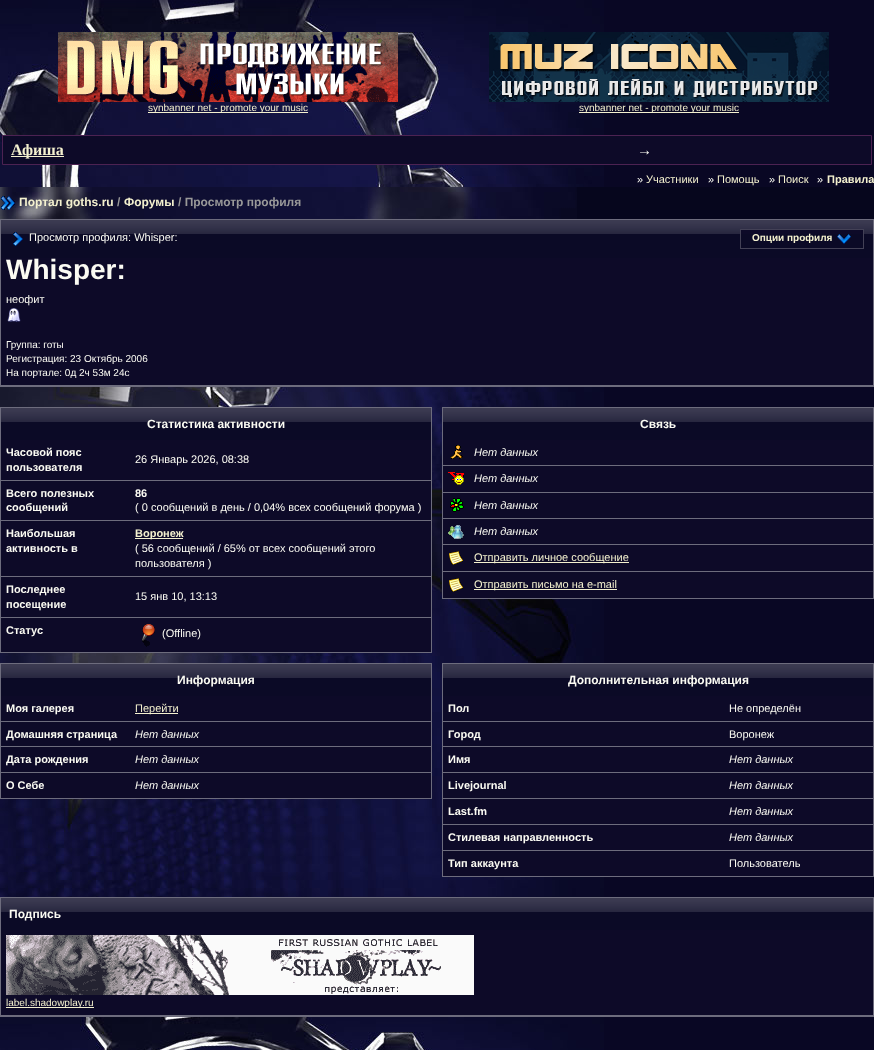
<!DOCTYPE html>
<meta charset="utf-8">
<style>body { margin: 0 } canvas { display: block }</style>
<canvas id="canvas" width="874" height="1050"></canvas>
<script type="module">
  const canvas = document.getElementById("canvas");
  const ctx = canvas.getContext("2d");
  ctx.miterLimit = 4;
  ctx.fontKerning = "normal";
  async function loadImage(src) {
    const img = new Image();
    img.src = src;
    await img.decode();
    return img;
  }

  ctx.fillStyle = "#090724";
  ctx.fillRect(0, 0, 874, 1050);
  ctx.drawImage(await loadImage("img1.png"), 0, 0, 604, 1050);
  ctx.drawImage(await loadImage("img2.png"), 82, 0, 236, 13);
  ctx.drawImage(await loadImage("img3.png"), 58, 32, 340, 70);
  ctx.fillStyle = "#f4f1cf";
  ctx.fillRect(148, 112, 160, 1);
  ctx.font = "10px Liberation Sans";
  ctx.fillText("synbanner net - promote your music", 148, 111);
  ctx.drawImage(await loadImage("img4.png"), 489, 32, 340, 70);
  ctx.fillRect(579, 112, 160, 1);
  ctx.fillText("synbanner net - promote your music", 579, 111);
  ctx.fillStyle = "#0d0a28";
  ctx.beginPath();
  ctx.rect(2.5, 135.5, 869, 29);
  ctx.fill();
  ctx.strokeStyle = "#4c2252";
  ctx.stroke();
  ctx.fillStyle = "#f4f1cf";
  ctx.fillRect(11, 156, 53, 1);
  ctx.font = "bold 16px Liberation Serif";
  ctx.fillText("Афиша", 11, 155);
  ctx.font = "bold 15px Liberation Sans";
  ctx.fillStyle = "#fbfbf3";
  ctx.fillText("→", 637, 155);
  ctx.font = "11px Liberation Sans";
  ctx.fillText("»", 637, 183);
  ctx.fillStyle = "#f4f1cf";
  ctx.fillText("Участники", 646, 183);
  ctx.fillStyle = "#fbfbf3";
  ctx.fillText("»", 708, 183);
  ctx.fillStyle = "#f4f1cf";
  ctx.fillText("Помощь", 717, 183);
  ctx.fillStyle = "#fbfbf3";
  ctx.fillText("»", 769, 183);
  ctx.fillStyle = "#f4f1cf";
  ctx.fillText("Поиск", 778, 183);
  ctx.fillStyle = "#fbfbf3";
  ctx.fillText("»", 817, 183);
  ctx.font = "bold 11px Liberation Sans";
  ctx.fillStyle = "#f4f1cf";
  ctx.fillText("Правила", 827, 183);
  ctx.fillStyle = "#06061d";
  ctx.fillRect(577, 187, 297, 32);
  ctx.drawImage(await loadImage("img5.png"), 0, 187, 577, 32);
  ctx.drawImage(await loadImage("img6.png"), 1, 196, 14, 14);
  ctx.font = "bold 12px Liberation Sans";
  ctx.fillStyle = "#f4f1cf";
  ctx.fillText("Портал goths.ru", 19, 206);
  ctx.fillStyle = "#999999";
  ctx.fillText("/", 117, 206);
  ctx.fillStyle = "#f4f1cf";
  ctx.fillText("Форумы", 124, 206);
  ctx.fillStyle = "#999999";
  ctx.fillText("/ Просмотр профиля", 178, 206);
  ctx.strokeStyle = "#6d6c7d";
  ctx.strokeRect(0.5, 219.5, 873, 167);
  ctx.fillStyle = "#0b0a26";
  ctx.fillRect(1, 234, 872, 24);
  ctx.drawImage(await loadImage("img7.png"), 1, 220, 872, 14);
  ctx.drawImage(await loadImage("img8.png"), 13, 232, 10, 14);
  ctx.font = "11px Liberation Sans";
  ctx.fillStyle = "#fbfbf3";
  ctx.fillText("Просмотр профиля: Whisper:", 29, 241);
  ctx.fillStyle = "#0d0a28";
  ctx.fillRect(741, 230, 122, 4);
  ctx.strokeStyle = "#434156";
  ctx.strokeRect(740.5, 229.5, 123, 19);
  ctx.font = "bold 10px Liberation Sans";
  ctx.fillStyle = "#f4f1cf";
  ctx.fillText("Опции профиля", 752, 241);
  ctx.drawImage(await loadImage("img9.png"), 837, 234, 14, 10);
  ctx.fillStyle = "#0d0a28";
  ctx.fillRect(1, 258, 872, 127);
  ctx.font = "bold 28px Liberation Sans";
  ctx.fillStyle = "#fbfbf3";
  ctx.fillText("Whisper:", 6, 279);
  ctx.font = "11px Liberation Sans";
  ctx.fillText("неофит", 6, 303);
  ctx.drawImage(await loadImage("img10.png"), 7, 308, 14, 14);
  ctx.font = "10px Liberation Sans";
  ctx.fillText("Группа: готы", 6, 348);
  ctx.fillText("Регистрация: 23 Октябрь 2006", 6, 362);
  ctx.fillText("На портале: 0д 2ч 53м 24с", 6, 376);
  ctx.fillStyle = "#6d6c7d";
  ctx.fillRect(1, 385, 873, 1);
  ctx.drawImage(await loadImage("img11.png"), 1, 652, 430, 1);
  ctx.fillRect(0, 407, 432, 1);
  ctx.fillRect(431, 407, 1, 246);
  ctx.fillRect(0, 407, 1, 246);
  ctx.fillStyle = "#0b0a26";
  ctx.fillRect(1, 422, 430, 18);
  ctx.drawImage(await loadImage("img12.png"), 1, 408, 430, 14);
  ctx.font = "bold 12px Liberation Sans";
  ctx.fillStyle = "#fbfbf3";
  ctx.fillText("Статистика активности", 147, 428);
  ctx.fillStyle = "#0d0a28";
  ctx.fillRect(1, 440, 430, 40);
  ctx.font = "bold 11px Liberation Sans";
  ctx.fillStyle = "#fbfbf3";
  ctx.fillText("Часовой пояс", 6, 456);
  ctx.fillText("пользователя", 6, 471);
  ctx.fillStyle = "#6d6c7d";
  ctx.fillRect(0, 480, 432, 1);
  ctx.font = "11px Liberation Sans";
  ctx.fillStyle = "#fbfbf3";
  ctx.fillText("26 Январь 2026, 08:38", 135, 463);
  ctx.fillStyle = "#0d0a28";
  ctx.fillRect(1, 481, 430, 39);
  ctx.font = "bold 11px Liberation Sans";
  ctx.fillStyle = "#fbfbf3";
  ctx.fillText("Всего полезных", 6, 497);
  ctx.fillText("сообщений", 6, 511);
  ctx.fillStyle = "#6d6c7d";
  ctx.fillRect(0, 520, 432, 1);
  ctx.fillStyle = "#fbfbf3";
  ctx.fillText("86", 135, 497);
  ctx.font = "11px Liberation Sans";
  ctx.fillText("( 0 сообщений в день / 0,04% всех сообщений форума )", 135, 511);
  ctx.fillStyle = "#0d0a28";
  ctx.fillRect(1, 521, 430, 55);
  ctx.font = "bold 11px Liberation Sans";
  ctx.fillStyle = "#fbfbf3";
  ctx.fillText("Наибольшая", 6, 537);
  ctx.fillText("активность в", 6, 552);
  ctx.fillStyle = "#6d6c7d";
  ctx.fillRect(0, 576, 432, 1);
  ctx.fillStyle = "#f4f1cf";
  ctx.fillRect(135, 538, 48, 1);
  ctx.fillText("Воронеж", 135, 537);
  ctx.font = "11px Liberation Sans";
  ctx.fillStyle = "#fbfbf3";
  ctx.fillText("( 56 сообщений / 65% от всех сообщений этого", 135, 552);
  ctx.fillText("пользователя )", 135, 567);
  ctx.fillStyle = "#0d0a28";
  ctx.fillRect(1, 577, 430, 40);
  ctx.font = "bold 11px Liberation Sans";
  ctx.fillStyle = "#fbfbf3";
  ctx.fillText("Последнее", 6, 593);
  ctx.fillText("посещение", 6, 608);
  ctx.fillStyle = "#6d6c7d";
  ctx.fillRect(0, 617, 432, 1);
  ctx.font = "11px Liberation Sans";
  ctx.fillStyle = "#fbfbf3";
  ctx.fillText("15 янв 10, 13:13", 135, 600);
  ctx.fillStyle = "#0d0a28";
  ctx.fillRect(1, 618, 430, 34);
  ctx.font = "bold 11px Liberation Sans";
  ctx.fillStyle = "#fbfbf3";
  ctx.fillText("Статус", 6, 634);
  ctx.drawImage(await loadImage("img13.png"), 142, 624, 13, 23);
  ctx.font = "11px Liberation Sans";
  ctx.fillText("(Offline)", 162, 637);
  ctx.drawImage(await loadImage("img11.png"), 443, 598, 430, 1);
  ctx.fillStyle = "#6d6c7d";
  ctx.fillRect(442, 407, 432, 1);
  ctx.fillRect(873, 407, 1, 192);
  ctx.fillRect(442, 407, 1, 192);
  ctx.fillStyle = "#0b0a26";
  ctx.fillRect(443, 422, 430, 18);
  ctx.drawImage(await loadImage("img12.png"), 443, 408, 430, 14);
  ctx.font = "bold 12px Liberation Sans";
  ctx.fillStyle = "#fbfbf3";
  ctx.fillText("Связь", 640, 428);
  ctx.fillStyle = "#0d0a28";
  ctx.fillRect(443, 440, 430, 25);
  ctx.drawImage(await loadImage("img14.png"), 450, 445, 13, 14);
  ctx.fillStyle = "#6d6c7d";
  ctx.fillRect(442, 465, 432, 1);
  ctx.font = "italic 11px Liberation Sans";
  ctx.fillStyle = "#fbfbf3";
  ctx.fillText("Нет данных", 474, 456);
  ctx.fillStyle = "#0d0a28";
  ctx.fillRect(443, 466, 430, 26);
  ctx.drawImage(await loadImage("img15.png"), 448, 472, 16, 13);
  ctx.fillStyle = "#6d6c7d";
  ctx.fillRect(442, 492, 432, 1);
  ctx.fillStyle = "#fbfbf3";
  ctx.fillText("Нет данных", 474, 482);
  ctx.fillStyle = "#0d0a28";
  ctx.fillRect(443, 493, 430, 25);
  ctx.drawImage(await loadImage("img16.png"), 450, 498, 14, 14);
  ctx.fillStyle = "#6d6c7d";
  ctx.fillRect(442, 518, 432, 1);
  ctx.fillStyle = "#fbfbf3";
  ctx.fillText("Нет данных", 474, 509);
  ctx.fillStyle = "#0d0a28";
  ctx.fillRect(443, 519, 430, 25);
  ctx.drawImage(await loadImage("img17.png"), 448, 525, 16, 14);
  ctx.fillStyle = "#6d6c7d";
  ctx.fillRect(442, 544, 432, 1);
  ctx.fillStyle = "#fbfbf3";
  ctx.fillText("Нет данных", 474, 535);
  ctx.fillStyle = "#0d0a28";
  ctx.fillRect(443, 545, 430, 26);
  ctx.drawImage(await loadImage("img18.png"), 449, 551, 14, 14);
  ctx.fillStyle = "#6d6c7d";
  ctx.fillRect(442, 571, 432, 1);
  ctx.fillStyle = "#f4f1cf";
  ctx.fillRect(474, 562, 155, 1);
  ctx.font = "11px Liberation Sans";
  ctx.fillText("Отправить личное сообщение", 474, 561);
  ctx.fillStyle = "#0d0a28";
  ctx.fillRect(443, 572, 430, 26);
  ctx.drawImage(await loadImage("img18.png"), 449, 578, 14, 14);
  ctx.fillStyle = "#f4f1cf";
  ctx.fillRect(474, 589, 143, 1);
  ctx.fillText("Отправить письмо на e-mail", 474, 588);
  ctx.fillStyle = "#6d6c7d";
  ctx.fillRect(0, 663, 432, 1);
  ctx.fillRect(431, 663, 1, 136);
  ctx.fillRect(0, 798, 432, 1);
  ctx.fillRect(0, 663, 1, 136);
  ctx.fillStyle = "#0b0a26";
  ctx.fillRect(1, 678, 430, 18);
  ctx.drawImage(await loadImage("img12.png"), 1, 664, 430, 14);
  ctx.font = "bold 12px Liberation Sans";
  ctx.fillStyle = "#fbfbf3";
  ctx.fillText("Информация", 177, 684);
  ctx.fillStyle = "#0d0a28";
  ctx.fillRect(1, 696, 430, 25);
  ctx.font = "bold 11px Liberation Sans";
  ctx.fillStyle = "#fbfbf3";
  ctx.fillText("Моя галерея", 6, 712);
  ctx.fillStyle = "#6d6c7d";
  ctx.fillRect(0, 721, 432, 1);
  ctx.fillStyle = "#f4f1cf";
  ctx.fillRect(135, 713, 43, 1);
  ctx.font = "11px Liberation Sans";
  ctx.fillText("Перейти", 135, 712);
  ctx.fillStyle = "#0d0a28";
  ctx.fillRect(1, 722, 430, 24);
  ctx.font = "bold 11px Liberation Sans";
  ctx.fillStyle = "#fbfbf3";
  ctx.fillText("Домашняя страница", 6, 738);
  ctx.fillStyle = "#6d6c7d";
  ctx.fillRect(0, 746, 432, 1);
  ctx.font = "italic 11px Liberation Sans";
  ctx.fillStyle = "#fbfbf3";
  ctx.fillText("Нет данных", 135, 738);
  ctx.fillStyle = "#0d0a28";
  ctx.fillRect(1, 747, 430, 25);
  ctx.font = "bold 11px Liberation Sans";
  ctx.fillStyle = "#fbfbf3";
  ctx.fillText("Дата рождения", 6, 763);
  ctx.fillStyle = "#6d6c7d";
  ctx.fillRect(0, 772, 432, 1);
  ctx.font = "italic 11px Liberation Sans";
  ctx.fillStyle = "#fbfbf3";
  ctx.fillText("Нет данных", 135, 763);
  ctx.fillStyle = "#0d0a28";
  ctx.fillRect(1, 773, 430, 25);
  ctx.font = "bold 11px Liberation Sans";
  ctx.fillStyle = "#fbfbf3";
  ctx.fillText("О Себе", 6, 789);
  ctx.font = "italic 11px Liberation Sans";
  ctx.fillText("Нет данных", 135, 789);
  ctx.drawImage(await loadImage("img11.png"), 443, 876, 430, 1);
  ctx.fillStyle = "#6d6c7d";
  ctx.fillRect(442, 663, 432, 1);
  ctx.fillRect(873, 663, 1, 214);
  ctx.fillRect(442, 663, 1, 214);
  ctx.fillStyle = "#0b0a26";
  ctx.fillRect(443, 678, 430, 18);
  ctx.drawImage(await loadImage("img12.png"), 443, 664, 430, 14);
  ctx.font = "bold 12px Liberation Sans";
  ctx.fillStyle = "#fbfbf3";
  ctx.fillText("Дополнительная информация", 568, 684);
  ctx.fillStyle = "#0d0a28";
  ctx.fillRect(443, 696, 430, 25);
  ctx.font = "bold 11px Liberation Sans";
  ctx.fillStyle = "#fbfbf3";
  ctx.fillText("Пол", 448, 712);
  ctx.fillStyle = "#6d6c7d";
  ctx.fillRect(442, 721, 432, 1);
  ctx.font = "11px Liberation Sans";
  ctx.fillStyle = "#fbfbf3";
  ctx.fillText("Не определён", 729, 712);
  ctx.fillStyle = "#0d0a28";
  ctx.fillRect(443, 722, 430, 24);
  ctx.font = "bold 11px Liberation Sans";
  ctx.fillStyle = "#fbfbf3";
  ctx.fillText("Город", 448, 738);
  ctx.fillStyle = "#6d6c7d";
  ctx.fillRect(442, 746, 432, 1);
  ctx.font = "11px Liberation Sans";
  ctx.fillStyle = "#fbfbf3";
  ctx.fillText("Воронеж", 729, 738);
  ctx.fillStyle = "#0d0a28";
  ctx.fillRect(443, 747, 430, 25);
  ctx.font = "bold 11px Liberation Sans";
  ctx.fillStyle = "#fbfbf3";
  ctx.fillText("Имя", 448, 763);
  ctx.fillStyle = "#6d6c7d";
  ctx.fillRect(442, 772, 432, 1);
  ctx.font = "italic 11px Liberation Sans";
  ctx.fillStyle = "#fbfbf3";
  ctx.fillText("Нет данных", 729, 763);
  ctx.fillStyle = "#0d0a28";
  ctx.fillRect(443, 773, 430, 25);
  ctx.font = "bold 11px Liberation Sans";
  ctx.fillStyle = "#fbfbf3";
  ctx.fillText("Livejournal", 448, 789);
  ctx.fillStyle = "#6d6c7d";
  ctx.fillRect(442, 798, 432, 1);
  ctx.font = "italic 11px Liberation Sans";
  ctx.fillStyle = "#fbfbf3";
  ctx.fillText("Нет данных", 729, 789);
  ctx.fillStyle = "#0d0a28";
  ctx.fillRect(443, 799, 430, 25);
  ctx.font = "bold 11px Liberation Sans";
  ctx.fillStyle = "#fbfbf3";
  ctx.fillText("Last.fm", 448, 815);
  ctx.fillStyle = "#6d6c7d";
  ctx.fillRect(442, 824, 432, 1);
  ctx.font = "italic 11px Liberation Sans";
  ctx.fillStyle = "#fbfbf3";
  ctx.fillText("Нет данных", 729, 815);
  ctx.fillStyle = "#0d0a28";
  ctx.fillRect(443, 825, 430, 25);
  ctx.font = "bold 11px Liberation Sans";
  ctx.fillStyle = "#fbfbf3";
  ctx.fillText("Стилевая направленность", 448, 841);
  ctx.fillStyle = "#6d6c7d";
  ctx.fillRect(442, 850, 432, 1);
  ctx.font = "italic 11px Liberation Sans";
  ctx.fillStyle = "#fbfbf3";
  ctx.fillText("Нет данных", 729, 841);
  ctx.fillStyle = "#0d0a28";
  ctx.fillRect(443, 851, 430, 25);
  ctx.font = "bold 11px Liberation Sans";
  ctx.fillStyle = "#fbfbf3";
  ctx.fillText("Тип аккаунта", 448, 867);
  ctx.font = "11px Liberation Sans";
  ctx.fillText("Пользователь", 729, 867);
  ctx.strokeStyle = "#6d6c7d";
  ctx.strokeRect(0.5, 897.5, 873, 119);
  ctx.fillStyle = "#0b0a26";
  ctx.fillRect(1, 912, 872, 18);
  ctx.drawImage(await loadImage("img7.png"), 1, 898, 872, 14);
  ctx.font = "bold 12px Liberation Sans";
  ctx.fillStyle = "#fbfbf3";
  ctx.fillText("Подпись", 9, 918);
  ctx.fillStyle = "#0d0a28";
  ctx.fillRect(1, 930, 872, 85);
  ctx.fillStyle = "#6d6c7d";
  ctx.fillRect(1, 1015, 873, 1);
  ctx.drawImage(await loadImage("img19.png"), 6, 935, 468, 60);
  ctx.fillStyle = "#f4f1cf";
  ctx.fillRect(6, 1007, 88, 1);
  ctx.font = "10px Liberation Sans";
  ctx.fillText("label.shadowplay.ru", 6, 1006);
</script>
